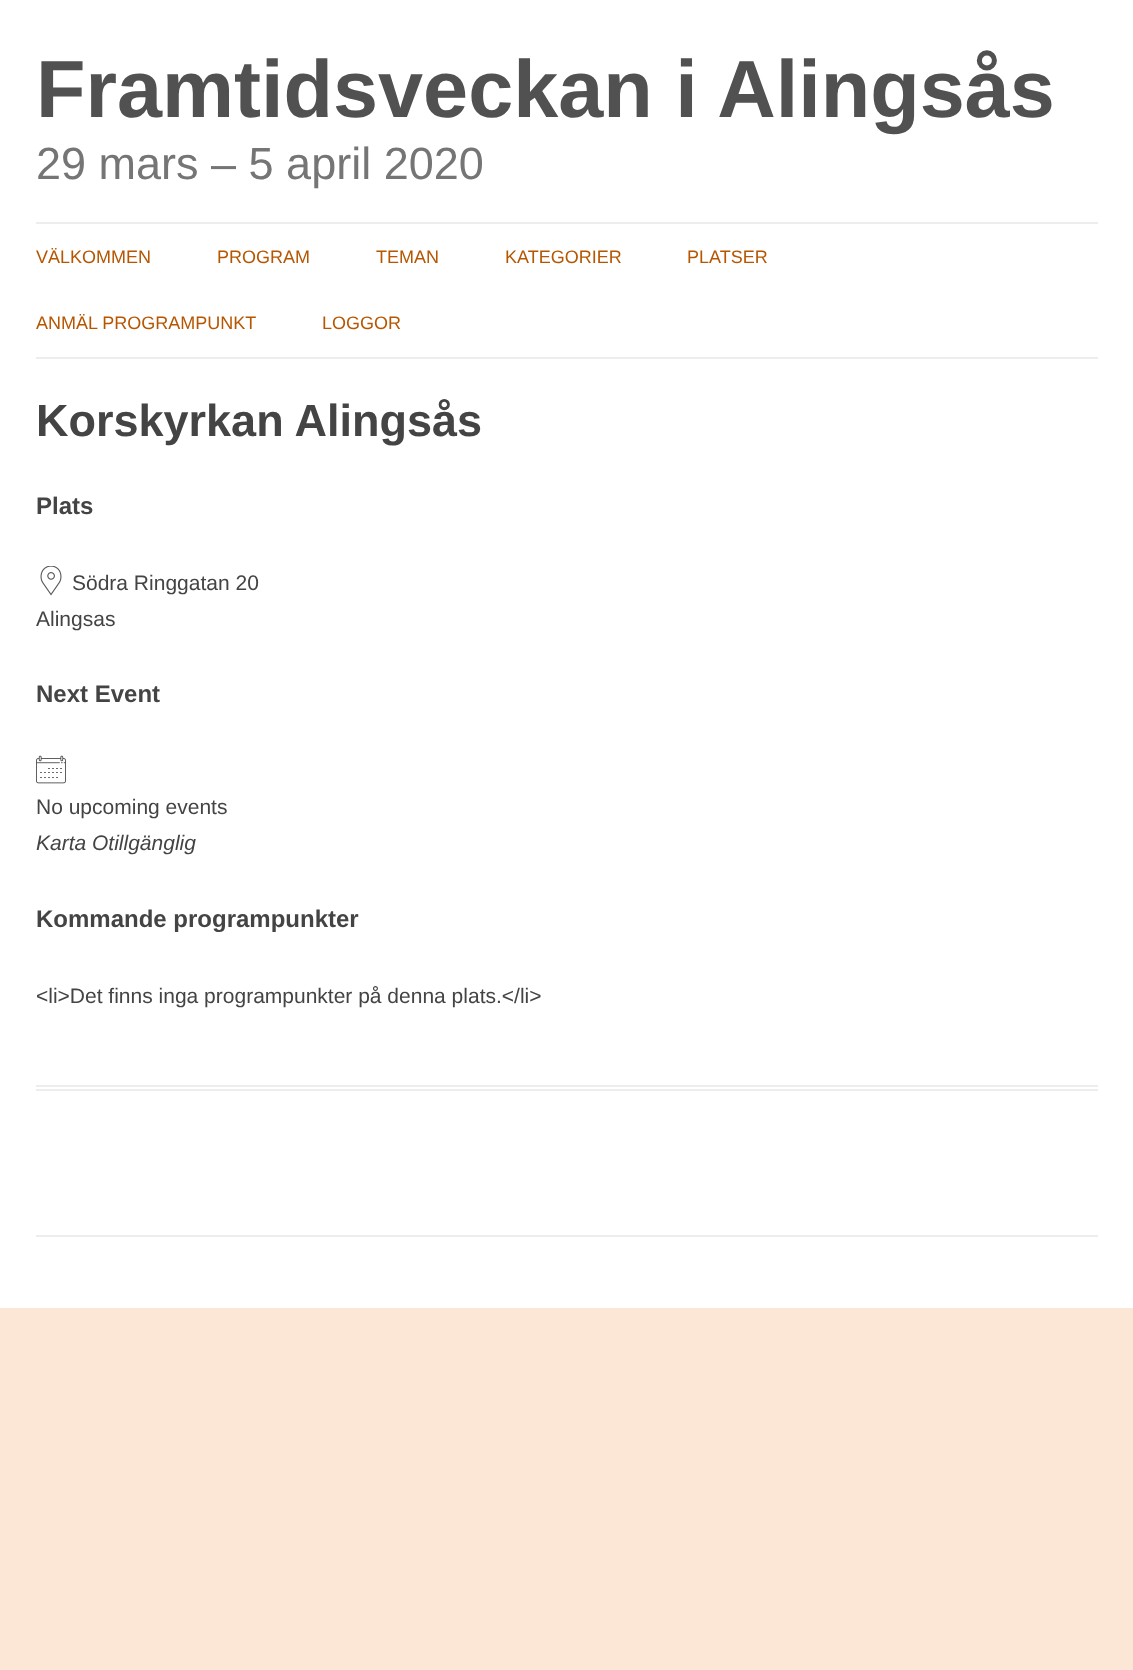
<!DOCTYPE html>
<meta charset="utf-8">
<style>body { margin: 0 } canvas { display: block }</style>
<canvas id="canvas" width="1133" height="1670"></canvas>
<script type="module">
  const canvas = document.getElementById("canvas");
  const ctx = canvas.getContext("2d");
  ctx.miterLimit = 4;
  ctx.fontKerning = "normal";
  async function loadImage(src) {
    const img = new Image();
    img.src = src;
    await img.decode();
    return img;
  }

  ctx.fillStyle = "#fce6d6";
  ctx.fillRect(0, 0, 1133, 1670);
  ctx.fillStyle = "#ffffff";
  ctx.fillRect(0, 0, 1133, 1308);
  ctx.font = "bold 81px Liberation Sans";
  ctx.fillStyle = "#515151";
  ctx.fillText("Framtidsveckan i Alingsås", 36, 117);
  ctx.font = "45px Liberation Sans";
  ctx.fillStyle = "#757575";
  ctx.fillText("29 mars – 5 april 2020", 36, 179);
  ctx.fillStyle = "#ededed";
  ctx.fillRect(36, 222, 1062, 2);
  ctx.fillRect(36, 357, 1062, 2);
  ctx.font = "18px Liberation Sans";
  ctx.fillStyle = "#b65600";
  ctx.fillText("VÄLKOMMEN", 36, 263);
  ctx.fillText("PROGRAM", 217, 263);
  ctx.fillText("TEMAN", 376, 263);
  ctx.fillText("KATEGORIER", 505, 263);
  ctx.fillText("PLATSER", 687, 263);
  ctx.fillText("ANMÄL PROGRAMPUNKT", 36, 329);
  ctx.fillText("LOGGOR", 322, 329);
  ctx.fillStyle = "#ededed";
  ctx.fillRect(36, 1085, 1062, 2);
  ctx.fillRect(36, 1089, 1062, 2);
  ctx.font = "bold 45px Liberation Sans";
  ctx.fillStyle = "#444444";
  ctx.fillText("Korskyrkan Alingsås", 36, 436);
  ctx.font = "bold 24px Liberation Sans";
  ctx.fillText("Plats", 36, 514);
  ctx.drawImage(await loadImage("img1.png"), 40, 566, 22, 30);
  ctx.font = "21px Liberation Sans";
  ctx.fillText("Södra Ringgatan 20", 72, 590);
  ctx.fillText("Alingsas", 36, 626);
  ctx.font = "bold 24px Liberation Sans";
  ctx.fillText("Next Event", 36, 702);
  ctx.drawImage(await loadImage("img2.png"), 36, 755, 30, 29);
  ctx.font = "21px Liberation Sans";
  ctx.fillText("No upcoming events", 36, 814);
  ctx.font = "italic 21px Liberation Sans";
  ctx.fillText("Karta Otillgänglig", 36, 850);
  ctx.font = "bold 24px Liberation Sans";
  ctx.fillText("Kommande programpunkter", 36, 927);
  ctx.font = "21px Liberation Sans";
  ctx.fillText("<li>Det finns inga programpunkter på denna plats.<\/li>", 36, 1003);
  ctx.fillStyle = "#ededed";
  ctx.fillRect(36, 1235, 1062, 2);
</script>
